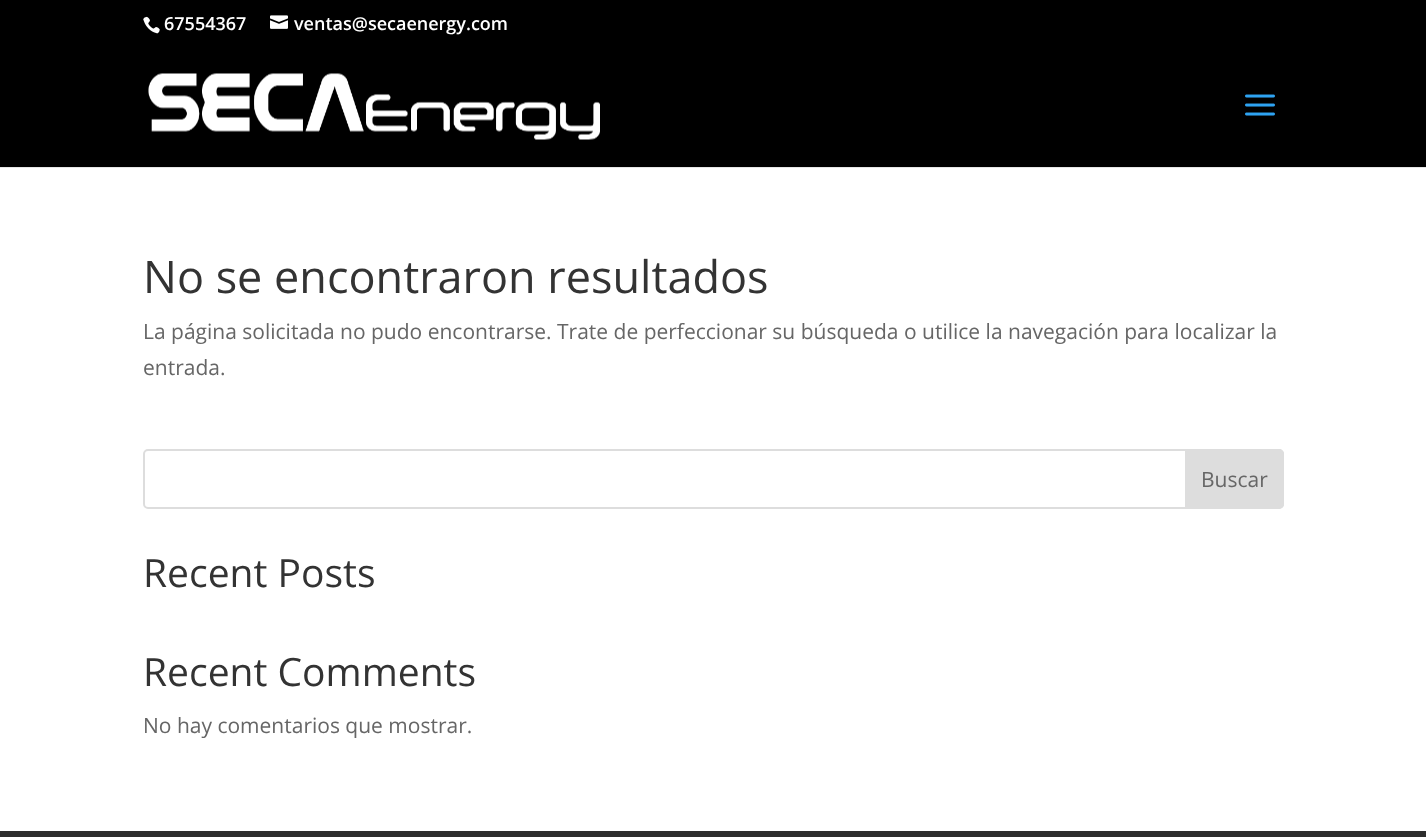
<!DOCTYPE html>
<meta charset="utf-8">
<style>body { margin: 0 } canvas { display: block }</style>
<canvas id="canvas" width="1426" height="837"></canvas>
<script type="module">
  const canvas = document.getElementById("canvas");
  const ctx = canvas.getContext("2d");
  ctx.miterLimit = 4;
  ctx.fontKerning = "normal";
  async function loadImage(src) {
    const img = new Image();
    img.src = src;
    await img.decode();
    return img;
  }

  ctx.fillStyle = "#ffffff";
  ctx.fillRect(0, 0, 1426, 837);
  ctx.fillStyle = "#000000";
  ctx.fillRect(0, 0, 1426, 47);
  ctx.drawImage(await loadImage("img1.png"), 143, 16, 17, 18);
  ctx.font = "600 18px Open Sans";
  ctx.fillStyle = "#ffffff";
  ctx.fillText("67554367", 164, 30);
  ctx.drawImage(await loadImage("img2.png"), 270, 15, 18, 14);
  ctx.fillText("ventas@secaenergy.com", 294, 30);
  ctx.fillStyle = "#e6e6e6";
  ctx.beginPath();
  ctx.moveTo(0, 166);
  ctx.lineTo(0, 168);
  ctx.lineTo(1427, 168);
  ctx.lineTo(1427, 48);
  ctx.lineTo(1426, 48);
  ctx.lineTo(1426, 166);
  ctx.closePath();
  ctx.fill();
  ctx.fillStyle = "#000000";
  ctx.fillRect(0, 47, 1426, 120);
  ctx.drawImage(await loadImage("img3.png"), 148, 73, 452, 67);
  ctx.drawImage(await loadImage("img4.png"), 1245, 94, 30, 22);
  ctx.font = "45px Open Sans";
  ctx.fillStyle = "#333333";
  ctx.fillText("No se encontraron resultados", 143, 293);
  ctx.font = "21px Open Sans";
  ctx.fillStyle = "#666666";
  ctx.fillText("La página solicitada no pudo encontrarse. Trate de perfeccionar su búsqueda o utilice la navegación para localizar la", 143, 339);
  ctx.fillText("entrada.", 143, 375);
  ctx.beginPath();
  ctx.roundRect(144, 450, 1139, 58, 4);
  ctx.strokeStyle = "#dddddd";
  ctx.lineWidth = 2;
  ctx.stroke();
  ctx.fillStyle = "#dddddd";
  ctx.beginPath();
  ctx.roundRect(1186, 450, 97, 58, [0, 4, 4, 0]);
  ctx.fill();
  ctx.stroke();
  ctx.fillStyle = "#666666";
  ctx.fillText("Buscar", 1201, 487);
  ctx.font = "39px Open Sans";
  ctx.fillStyle = "#333333";
  ctx.fillText("Recent Posts", 143, 587);
  ctx.fillText("Recent Comments", 143, 686);
  ctx.font = "21px Open Sans";
  ctx.fillStyle = "#666666";
  ctx.fillText("No hay comentarios que mostrar.", 143, 733);
  ctx.fillStyle = "#2d2d2d";
  ctx.fillRect(0, 831, 1426, 6);
</script>
